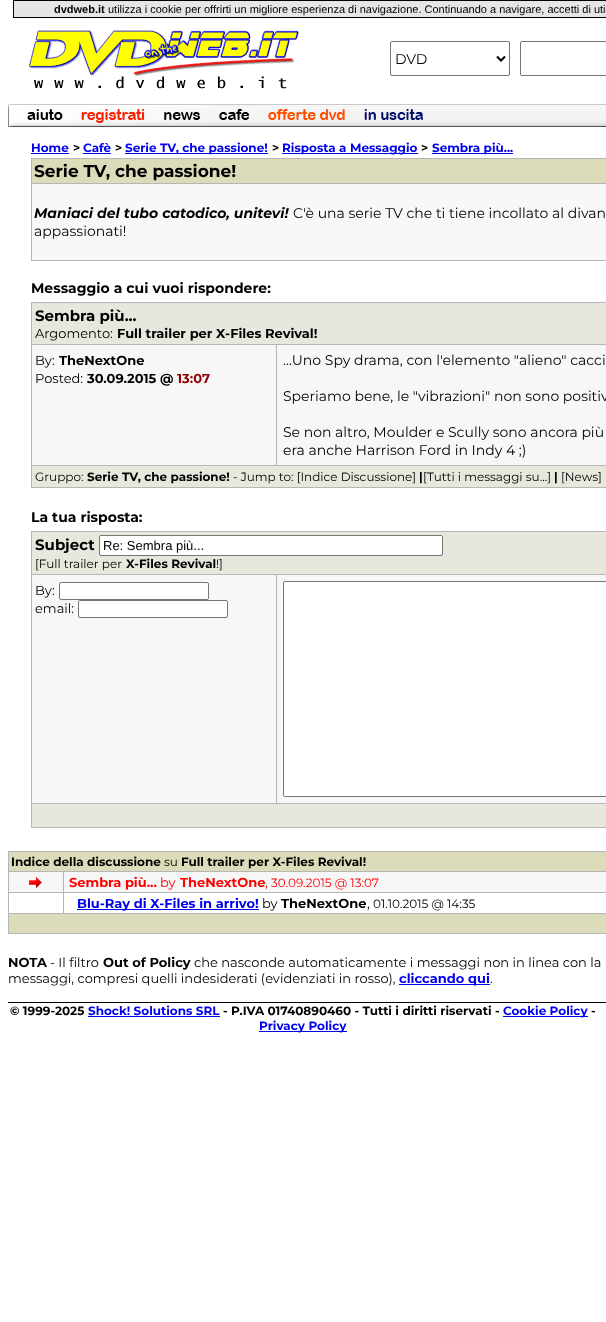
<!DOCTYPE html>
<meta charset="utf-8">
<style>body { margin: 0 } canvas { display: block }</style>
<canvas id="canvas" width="606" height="1322"></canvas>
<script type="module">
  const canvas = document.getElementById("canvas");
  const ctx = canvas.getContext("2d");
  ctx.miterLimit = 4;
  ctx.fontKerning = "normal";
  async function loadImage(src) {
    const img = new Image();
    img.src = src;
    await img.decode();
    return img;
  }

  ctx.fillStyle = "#ffffff";
  ctx.fillRect(0, 0, 606, 1322);
  ctx.fillStyle = "#000000";
  ctx.fillRect(13, 0, 593, 18);
  ctx.fillStyle = "#e6e6e6";
  ctx.fillRect(14, 1, 592, 16);
  ctx.font = "bold 11px Liberation Sans";
  ctx.fillStyle = "#000000";
  ctx.fillText("dvdweb.it", 54, 13);
  ctx.font = "11px Liberation Sans";
  ctx.fillText("utilizza i cookie per offrirti un migliore esperienza di navigazione. Continuando a navigare, accetti di uti", 108, 13);
  ctx.drawImage(await loadImage("img1.png"), 29, 30, 270, 59);
  ctx.beginPath();
  ctx.roundRect(390.5, 41.5, 119, 34, 1.5);
  ctx.strokeStyle = "#767676";
  ctx.stroke();
  ctx.beginPath();
  ctx.moveTo(497, 56.5);
  ctx.lineTo(501, 60.5);
  ctx.lineTo(505, 56.5);
  ctx.strokeStyle = "#000000";
  ctx.lineWidth = 2;
  ctx.stroke();
  ctx.font = "14px Montserrat";
  ctx.fillText("DVD", 395, 64);
  ctx.beginPath();
  ctx.roundRect(520.5, 41.5, 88, 34, 1.5);
  ctx.strokeStyle = "#767676";
  ctx.lineWidth = 1;
  ctx.stroke();
  ctx.drawImage(await loadImage("img2.png"), 8, 104, 65, 23);
  ctx.drawImage(await loadImage("img3.png"), 73, 104, 82, 23);
  ctx.drawImage(await loadImage("img4.png"), 155, 104, 56, 23);
  ctx.drawImage(await loadImage("img5.png"), 211, 104, 50, 23);
  ctx.drawImage(await loadImage("img6.png"), 261, 104, 94, 23);
  ctx.drawImage(await loadImage("img7.png"), 355, 104, 79, 23);
  ctx.drawImage(await loadImage("img8.png"), 434, 104, 172, 23);
  ctx.font = "bold 12px Montserrat";
  ctx.fillStyle = "#0000ee";
  ctx.fillText("Home", 31, 152);
  ctx.fillRect(31, 153, 38, 1);
  ctx.fillStyle = "#000000";
  ctx.fillText(">", 73, 152);
  ctx.fillStyle = "#0000ee";
  ctx.fillText("Cafè", 83, 152);
  ctx.fillRect(83, 153, 28, 1);
  ctx.fillStyle = "#000000";
  ctx.fillText(">", 115, 152);
  ctx.fillStyle = "#0000ee";
  ctx.fillRect(125, 153, 143, 1);
  ctx.fillText("Serie TV, che passione!", 125, 152);
  ctx.fillStyle = "#000000";
  ctx.fillText(">", 272, 152);
  ctx.fillStyle = "#0000ee";
  ctx.fillRect(282, 153, 136, 1);
  ctx.fillText("Risposta a Messaggio", 282, 152);
  ctx.fillStyle = "#000000";
  ctx.fillText(">", 421, 152);
  ctx.fillStyle = "#0000ee";
  ctx.fillRect(432, 153, 81, 1);
  ctx.fillText("Sembra più...", 432, 152);
  ctx.fillStyle = "#b6b6b6";
  ctx.fillRect(31, 158, 575, 103);
  ctx.fillStyle = "#dcdcba";
  ctx.fillRect(32, 159, 574, 24);
  ctx.font = "bold 17px Montserrat";
  ctx.fillStyle = "#000000";
  ctx.fillText("Serie TV, che passione!", 34, 177);
  ctx.fillStyle = "#f8f8f8";
  ctx.fillRect(32, 184, 574, 76);
  ctx.font = "italic 100 14px Montserrat";
  ctx.fillStyle = "#000000";
  ctx.fillText("Maniaci del tubo catodico, unitevi!", 34, 218);
  ctx.font = "14px Montserrat";
  ctx.fillText("C'è una serie TV che ti tiene incollato al divan", 293, 218);
  ctx.fillText("appassionati!", 34, 236);
  ctx.font = "bold 14px Montserrat";
  ctx.fillText("Messaggio a cui vuoi rispondere:", 31, 293);
  ctx.fillStyle = "#b6b6b6";
  ctx.fillRect(31, 302, 575, 186);
  ctx.fillStyle = "#e7e7de";
  ctx.fillRect(32, 303, 574, 41);
  ctx.font = "bold 15px Montserrat";
  ctx.fillStyle = "#000000";
  ctx.fillText("Sembra più...", 35, 321);
  ctx.font = "13px Montserrat";
  ctx.fillText("Argomento:", 35, 338);
  ctx.font = "bold 13px Montserrat";
  ctx.fillText("Full trailer per X-Files Revival!", 117, 338);
  ctx.fillStyle = "#f7f7f7";
  ctx.fillRect(32, 345, 244, 120);
  ctx.font = "13px Montserrat";
  ctx.fillStyle = "#000000";
  ctx.fillText("By:", 35, 365);
  ctx.font = "bold 13px Montserrat";
  ctx.fillText("TheNextOne", 59, 365);
  ctx.font = "13px Montserrat";
  ctx.fillText("Posted:", 35, 383);
  ctx.font = "bold 13px Montserrat";
  ctx.fillText("30.09.2015 @", 87, 383);
  ctx.fillStyle = "#950000";
  ctx.fillText("13:07", 177, 383);
  ctx.fillStyle = "#f7f7f7";
  ctx.fillRect(277, 345, 329, 120);
  ctx.font = "14px Montserrat";
  ctx.fillStyle = "#000000";
  ctx.fillText("...Uno Spy drama, con l'elemento \"alieno\" cacci", 283, 365);
  ctx.fillText("Speriamo bene, le \"vibrazioni\" non sono positiv", 283, 401);
  ctx.fillText("Se non altro, Moulder e Scully sono ancora più", 283, 437);
  ctx.fillText("era anche Harrison Ford in Indy 4 ;)", 283, 455);
  ctx.fillStyle = "#e7e7de";
  ctx.fillRect(32, 466, 574, 21);
  ctx.font = "12px Montserrat";
  ctx.fillStyle = "#000000";
  ctx.fillText("Gruppo:", 35, 481);
  ctx.font = "bold 12px Montserrat";
  ctx.fillText("Serie TV, che passione!", 87, 481);
  ctx.font = "12px Montserrat";
  ctx.fillText("- Jump to: [Indice Discussione]", 233, 481);
  ctx.font = "bold 12px Montserrat";
  ctx.fillText("|", 419, 481);
  ctx.font = "12px Montserrat";
  ctx.fillText("[Tutti i messaggi su...]", 423, 481);
  ctx.font = "bold 12px Montserrat";
  ctx.fillText("|", 554, 481);
  ctx.font = "12px Montserrat";
  ctx.fillText("[News]", 561, 481);
  ctx.font = "bold 14px Montserrat";
  ctx.fillText("La tua risposta:", 31, 522);
  ctx.fillStyle = "#b6b6b6";
  ctx.fillRect(31, 531, 575, 297);
  ctx.fillStyle = "#e7e7de";
  ctx.fillRect(32, 532, 574, 42);
  ctx.font = "bold 15px Montserrat";
  ctx.fillStyle = "#000000";
  ctx.fillText("Subject", 35, 550);
  ctx.fillStyle = "#ffffff";
  ctx.beginPath();
  ctx.roundRect(99.5, 535.5, 343, 20, 1.5);
  ctx.fill();
  ctx.stroke();
  ctx.font = "13px Liberation Sans";
  ctx.fillStyle = "#000000";
  ctx.fillText("Re: Sembra più...", 103, 550);
  ctx.font = "12px Montserrat";
  ctx.fillText("[Full trailer per", 35, 568);
  ctx.font = "bold 12px Montserrat";
  ctx.fillText("X-Files Revival", 126, 568);
  ctx.font = "12px Montserrat";
  ctx.fillText("!]", 216, 568);
  ctx.fillStyle = "#f7f7f7";
  ctx.fillRect(32, 575, 244, 228);
  ctx.font = "13px Montserrat";
  ctx.fillStyle = "#000000";
  ctx.fillText("By:", 35, 595);
  ctx.fillStyle = "#ffffff";
  ctx.beginPath();
  ctx.roundRect(59.5, 582.5, 149, 17, 1.5);
  ctx.fill();
  ctx.stroke();
  ctx.fillStyle = "#000000";
  ctx.fillText("email:", 35, 613);
  ctx.fillStyle = "#ffffff";
  ctx.beginPath();
  ctx.roundRect(78.5, 600.5, 149, 17, 1.5);
  ctx.fill();
  ctx.stroke();
  ctx.fillStyle = "#f7f7f7";
  ctx.fillRect(277, 575, 329, 228);
  ctx.fillStyle = "#ffffff";
  ctx.beginPath();
  ctx.roundRect(283.5, 581.5, 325, 215, 1.5);
  ctx.fill();
  ctx.stroke();
  ctx.fillStyle = "#e7e7de";
  ctx.fillRect(32, 804, 574, 23);
  ctx.fillStyle = "#b6b6b6";
  ctx.fillRect(8, 851, 598, 83);
  ctx.fillStyle = "#dcdcba";
  ctx.fillRect(9, 852, 597, 19);
  ctx.font = "bold 12px Montserrat";
  ctx.fillStyle = "#000000";
  ctx.fillText("Indice della discussione", 11, 866);
  ctx.font = "12px Montserrat";
  ctx.fillText("su", 164, 866);
  ctx.font = "bold 12px Montserrat";
  ctx.fillText("Full trailer per X-Files Revival!", 181, 866);
  ctx.fillStyle = "#f7f7f7";
  ctx.fillRect(9, 872, 54, 20);
  ctx.drawImage(await loadImage("img9.png"), 29, 877, 13, 11);
  ctx.fillRect(64, 872, 542, 20);
  ctx.font = "bold 13px Montserrat";
  ctx.fillStyle = "#ff0000";
  ctx.fillText("Sembra più...", 69, 887);
  ctx.font = "13px Montserrat";
  ctx.fillText("by", 160, 887);
  ctx.font = "bold 13px Montserrat";
  ctx.fillText("TheNextOne", 180, 887);
  ctx.font = "13px Montserrat";
  ctx.fillText(",", 265, 887);
  ctx.font = "12px Montserrat";
  ctx.fillText("30.09.2015 @ 13:07", 271, 887);
  ctx.fillStyle = "#ffffff";
  ctx.fillRect(9, 893, 54, 20);
  ctx.fillRect(64, 893, 542, 20);
  ctx.fillStyle = "#0000ee";
  ctx.fillRect(77, 909, 182, 1);
  ctx.font = "bold 13px Montserrat";
  ctx.fillText("Blu-Ray di X-Files in arrivo!", 77, 908);
  ctx.font = "13px Montserrat";
  ctx.fillStyle = "#000000";
  ctx.fillText("by", 262, 908);
  ctx.font = "bold 13px Montserrat";
  ctx.fillText("TheNextOne", 281, 908);
  ctx.font = "13px Montserrat";
  ctx.fillText(",", 367, 908);
  ctx.font = "12px Montserrat";
  ctx.fillText("01.10.2015 @ 14:35", 373, 908);
  ctx.fillStyle = "#dcdcba";
  ctx.fillRect(9, 914, 597, 19);
  ctx.font = "bold 13px Montserrat";
  ctx.fillStyle = "#000000";
  ctx.fillText("NOTA", 8, 967);
  ctx.font = "13px Montserrat";
  ctx.fillText("- Il filtro", 50, 967);
  ctx.font = "bold 13px Montserrat";
  ctx.fillText("Out of Policy", 103, 967);
  ctx.font = "13px Montserrat";
  ctx.fillText("che nasconde automaticamente i messaggi non in linea con la", 194, 967);
  ctx.fillText("messaggi, compresi quelli indesiderati (evidenziati in rosso),", 8, 983);
  ctx.fillStyle = "#0000ee";
  ctx.fillRect(399, 984, 91, 1);
  ctx.font = "bold 13px Montserrat";
  ctx.fillText("cliccando qui", 399, 983);
  ctx.font = "13px Montserrat";
  ctx.fillStyle = "#000000";
  ctx.fillText(".", 490, 983);
  ctx.fillRect(8, 1002, 598, 1);
  ctx.font = "bold 12px Montserrat";
  ctx.fillText("© 1999-2025", 10, 1015);
  ctx.fillStyle = "#0000ee";
  ctx.fillText("Shock! Solutions SRL", 88, 1015);
  ctx.fillRect(88, 1016, 132, 1);
  ctx.fillStyle = "#000000";
  ctx.fillText("- P.IVA 01740890460 - Tutti i diritti riservati -", 223, 1015);
  ctx.fillStyle = "#0000ee";
  ctx.fillRect(503, 1016, 85, 1);
  ctx.fillText("Cookie Policy", 503, 1015);
  ctx.fillStyle = "#000000";
  ctx.fillText("-", 591, 1015);
  ctx.fillStyle = "#0000ee";
  ctx.fillRect(259, 1031, 88, 1);
  ctx.fillText("Privacy Policy", 259, 1030);
</script>
